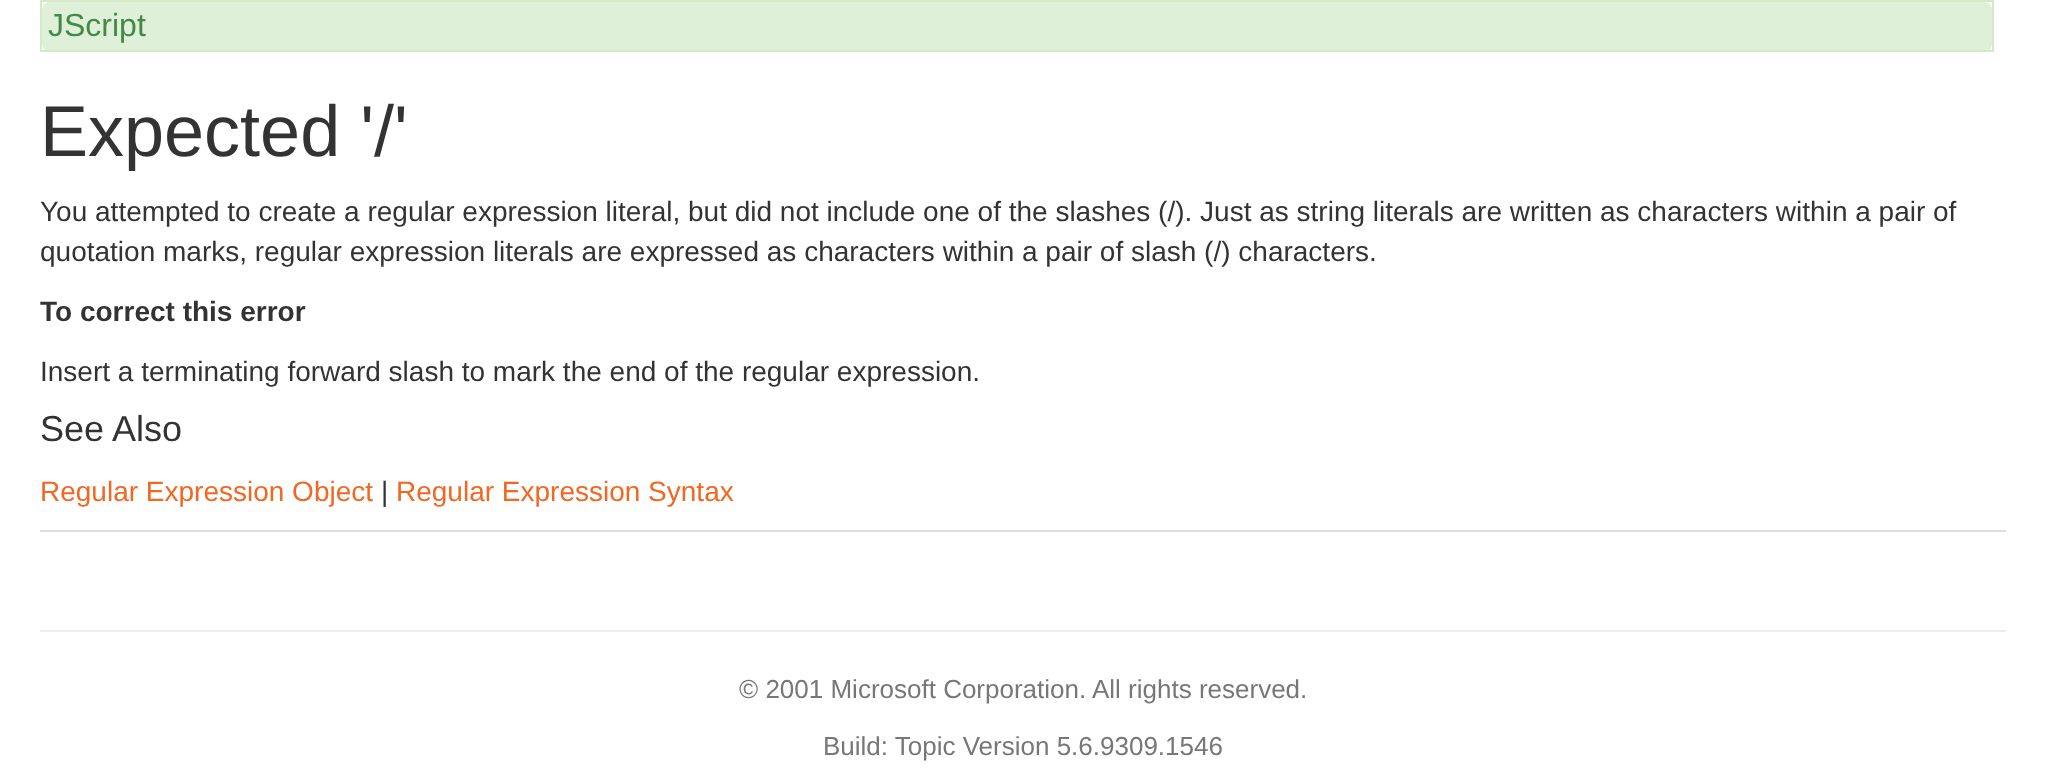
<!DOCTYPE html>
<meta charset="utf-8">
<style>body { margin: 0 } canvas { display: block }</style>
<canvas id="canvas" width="2046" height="783"></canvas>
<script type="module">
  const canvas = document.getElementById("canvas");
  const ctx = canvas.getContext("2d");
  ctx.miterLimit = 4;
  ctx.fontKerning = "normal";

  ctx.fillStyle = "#ffffff";
  ctx.fillRect(0, 0, 2046, 783);
  ctx.fillStyle = "#dff0d8";
  ctx.beginPath();
  ctx.roundRect(42, 2, 1950, 50, 8);
  ctx.fill();
  ctx.fillStyle = "#d6e9c6";
  ctx.fillRect(40, 0, 1954, 2);
  ctx.fillRect(1992, 0, 2, 52);
  ctx.fillRect(40, 50, 1954, 2);
  ctx.fillRect(40, 0, 2, 52);
  ctx.font = "32px Liberation Sans";
  ctx.fillStyle = "#468847";
  ctx.fillText("JScript", 48, 36);
  ctx.font = "72px Liberation Sans";
  ctx.fillStyle = "#333333";
  ctx.fillText("Expected '/'", 40, 156);
  ctx.font = "28px Liberation Sans";
  ctx.fillText("You attempted to create a regular expression literal, but did not include one of the slashes (/). Just as string literals are written as characters within a pair of", 40, 221);
  ctx.fillText("quotation marks, regular expression literals are expressed as characters within a pair of slash (/) characters.", 40, 261);
  ctx.font = "bold 28px Liberation Sans";
  ctx.fillText("To correct this error", 40, 321);
  ctx.font = "28px Liberation Sans";
  ctx.fillText("Insert a terminating forward slash to mark the end of the regular expression.", 40, 381);
  ctx.font = "36px Liberation Sans";
  ctx.fillText("See Also", 40, 441);
  ctx.font = "28px Liberation Sans";
  ctx.fillStyle = "#f26722";
  ctx.fillText("Regular Expression Object", 40, 501);
  ctx.fillStyle = "#333333";
  ctx.fillText("|", 381, 501);
  ctx.fillStyle = "#f26722";
  ctx.fillText("Regular Expression Syntax", 396, 501);
  ctx.fillStyle = "#dddddd";
  ctx.fillRect(40, 530, 1966, 2);
  ctx.fillStyle = "#eeeeee";
  ctx.fillRect(40, 630, 1966, 2);
  ctx.font = "26px Liberation Sans";
  ctx.fillStyle = "#777777";
  ctx.fillText("© 2001 Microsoft Corporation. All rights reserved.", 739, 698);
  ctx.fillText("Build: Topic Version 5.6.9309.1546", 823, 755);
</script>
